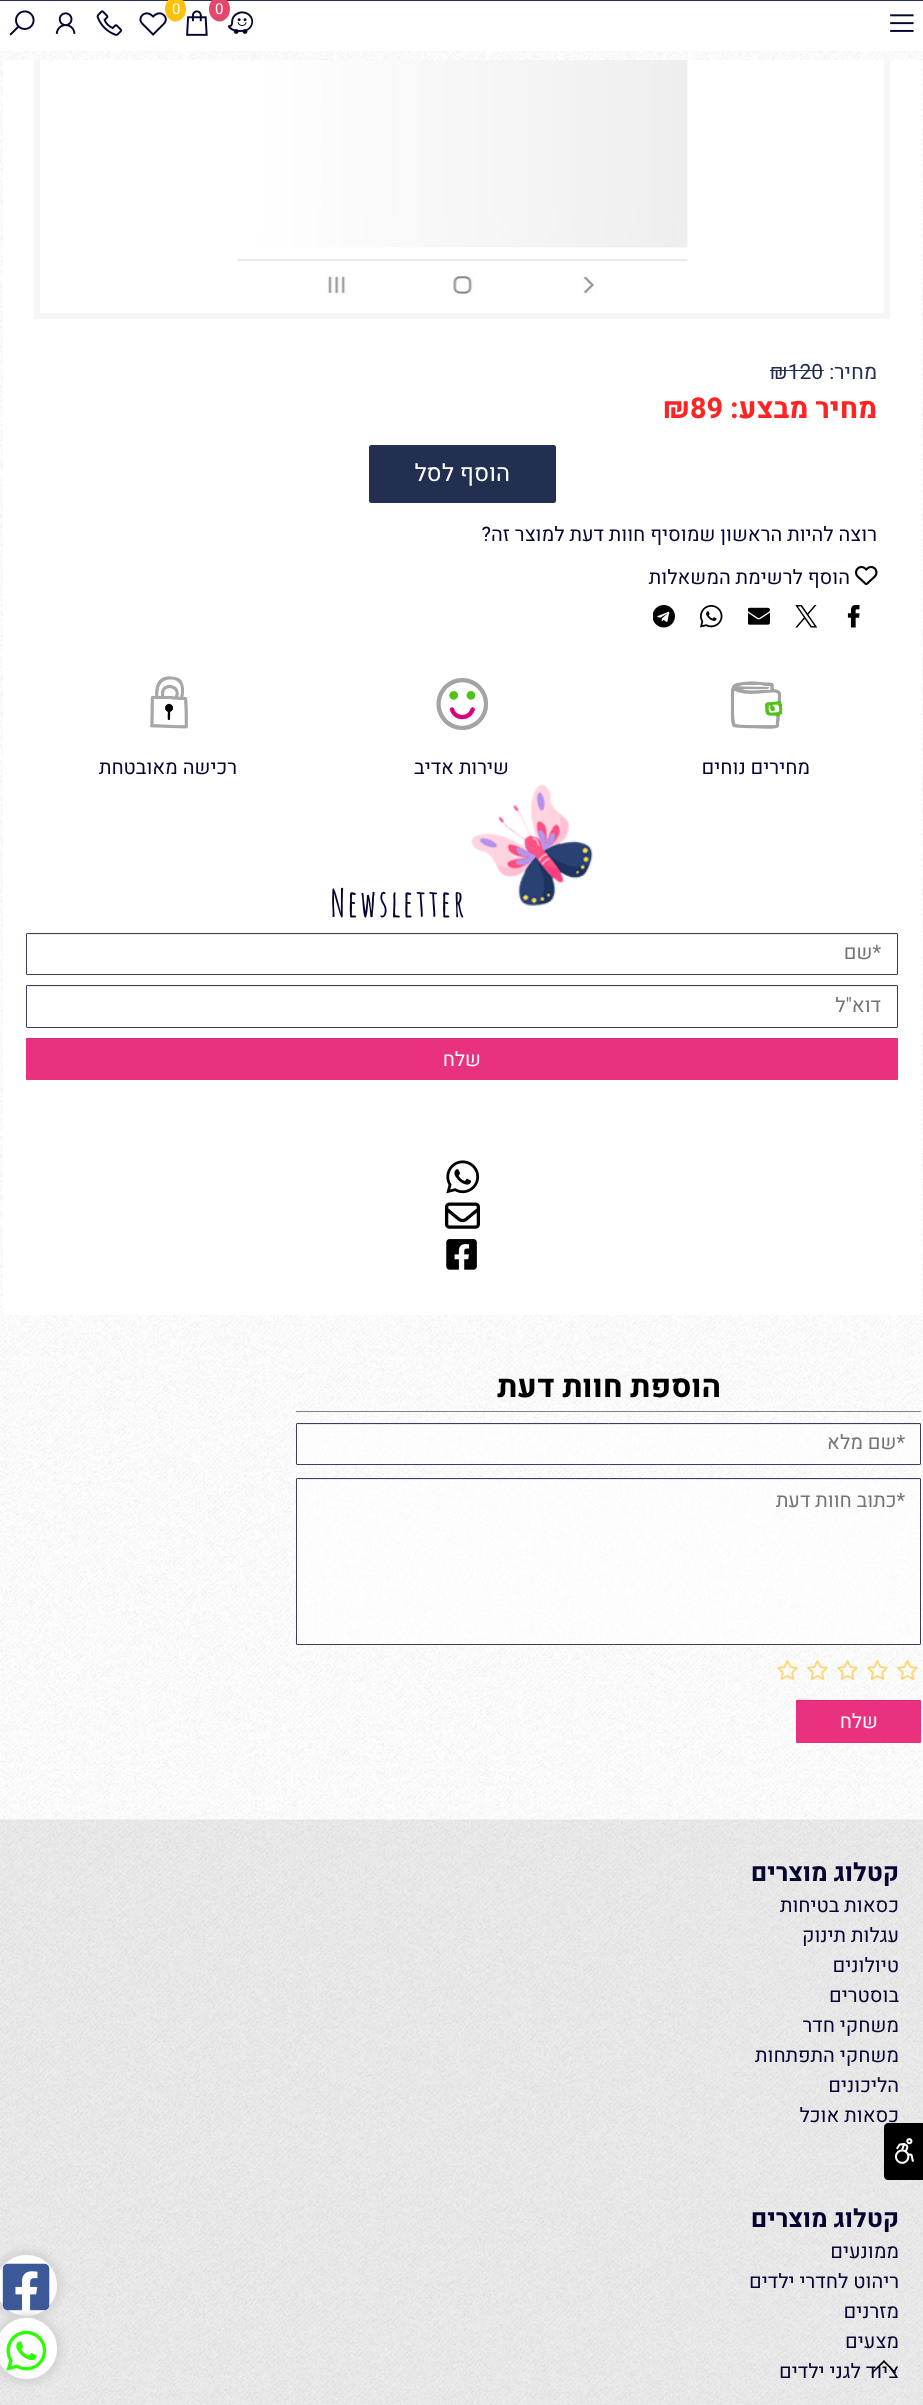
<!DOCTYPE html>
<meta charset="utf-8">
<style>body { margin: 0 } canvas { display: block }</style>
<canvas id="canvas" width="923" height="2405"></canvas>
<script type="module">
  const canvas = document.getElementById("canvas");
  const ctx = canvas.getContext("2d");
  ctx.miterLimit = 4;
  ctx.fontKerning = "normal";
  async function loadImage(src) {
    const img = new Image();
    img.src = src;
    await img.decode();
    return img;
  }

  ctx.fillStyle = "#ffffff";
  ctx.fillRect(0, 0, 923, 2405);
  ctx.drawImage(await loadImage("img1.png"), 0, 60, 923, 1760);
  ctx.fillRect(3, 60, 918, 1255);
  ctx.strokeStyle = "#f6f6f6";
  ctx.lineWidth = 6;
  ctx.strokeRect(37, -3, 850, 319);
  ctx.drawImage(await loadImage("img2.png"), 0, 51, 923, 9);
  ctx.fillStyle = "#253152";
  ctx.fillRect(0, 0, 923, 1);
  ctx.fillStyle = "#ffffff";
  ctx.fillRect(34, 1, 856, 50);
  ctx.drawImage(await loadImage("img3.png"), 890, 14, 24, 18);
  ctx.drawImage(await loadImage("img4.png"), 227, 11, 27, 23);
  ctx.fillStyle = "#e4466c";
  ctx.beginPath();
  ctx.ellipse(219.5, 9, 10.5, 12.5, 0, 0, Math.PI * 2);
  ctx.fill();
  ctx.font = "15px Heebo";
  ctx.fillStyle = "#ffffff";
  ctx.fillText("0", 215, 14);
  ctx.drawImage(await loadImage("img5.png"), 186, 10, 22, 26);
  ctx.drawImage(await loadImage("img6.png"), 139, 12, 28, 24);
  ctx.fillStyle = "#ffc107";
  ctx.beginPath();
  ctx.ellipse(175.5, 9, 10.5, 12.5, 0, 0, Math.PI * 2);
  ctx.fill();
  ctx.fillStyle = "#ffffff";
  ctx.fillText("0", 172, 14);
  ctx.drawImage(await loadImage("img7.png"), 96, 10, 27, 26);
  ctx.drawImage(await loadImage("img8.png"), 55, 12, 21, 22);
  ctx.drawImage(await loadImage("img9.png"), 9, 10, 26, 26);
  ctx.drawImage(await loadImage("img10.png"), 237, 60, 451, 236);
  ctx.direction = "rtl";
  ctx.font = "21px Heebo";
  ctx.fillStyle = "#232f51";
  ctx.fillText("מחיר:", 877, 379);
  ctx.direction = "ltr";
  ctx.fillText("₪120", 770, 379);
  ctx.fillRect(770, 370, 54, 1);
  ctx.direction = "rtl";
  ctx.font = "bold 28.75px Heebo";
  ctx.fillStyle = "#ff2424";
  ctx.fillText("מחיר מבצע:", 877, 418);
  ctx.direction = "ltr";
  ctx.fillText("₪89", 663, 418);
  ctx.fillStyle = "#232f51";
  ctx.beginPath();
  ctx.roundRect(369, 445, 187, 58, 2.5);
  ctx.fill();
  ctx.direction = "rtl";
  ctx.font = "23.75px Heebo";
  ctx.fillStyle = "#ffffff";
  ctx.fillText("הוסף לסל", 510, 481);
  ctx.font = "20px Heebo";
  ctx.fillStyle = "#060531";
  ctx.fillText("רוצה להיות הראשון שמוסיף חוות דעת למוצר זה?", 877, 541);
  ctx.drawImage(await loadImage("img11.png"), 855, 566, 23, 20);
  ctx.fillText("הוסף לרשימת המשאלות", 850, 584);
  ctx.drawImage(await loadImage("img12.png"), 847, 605, 13, 23);
  ctx.drawImage(await loadImage("img13.png"), 795, 605, 23, 23);
  ctx.drawImage(await loadImage("img14.png"), 748, 607, 22, 18);
  ctx.drawImage(await loadImage("img15.png"), 700, 605, 23, 23);
  ctx.drawImage(await loadImage("img16.png"), 653, 605, 22, 23);
  ctx.drawImage(await loadImage("img17.png"), 730, 681, 53, 48);
  ctx.fillText("מחירים נוחים", 810, 774);
  ctx.drawImage(await loadImage("img18.png"), 436, 678, 52, 52);
  ctx.fillText("שירות אדיב", 509, 774);
  ctx.drawImage(await loadImage("img19.png"), 150, 676, 38, 53);
  ctx.fillText("רכישה מאובטחת", 237, 774);
  ctx.drawImage(await loadImage("img20.png"), 471, 784, 122, 122);
  ctx.direction = "ltr";
  ctx.font = "bold 37.5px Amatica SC";
  ctx.fillText("Newsletter", 329, 917);
  ctx.fillStyle = "#ececec";
  ctx.fillRect(28, 934, 868, 1);
  ctx.beginPath();
  ctx.roundRect(26.5, 933.5, 871, 41, 0.5);
  ctx.strokeStyle = "#3d3c62";
  ctx.lineWidth = 1;
  ctx.stroke();
  ctx.direction = "rtl";
  ctx.font = "20px Heebo";
  ctx.fillStyle = "#757575";
  ctx.fillText("*שם", 881, 959);
  ctx.fillStyle = "#ececec";
  ctx.fillRect(28, 986, 868, 1);
  ctx.beginPath();
  ctx.roundRect(26.5, 985.5, 871, 42, 0.5);
  ctx.stroke();
  ctx.fillStyle = "#757575";
  ctx.fillText("דוא\"ל", 881, 1012);
  ctx.fillStyle = "#e9317f";
  ctx.beginPath();
  ctx.roundRect(26, 1038, 872, 42, 1);
  ctx.fill();
  ctx.fillStyle = "rgba(0, 0, 0, 0.07)";
  ctx.beginPath();
  ctx.moveTo(28, 1039);
  ctx.lineTo(896, 1039);
  ctx.bezierCurveTo(897, 1039, 898, 1039, 898, 1040);
  ctx.lineTo(898, 1039);
  ctx.lineTo(897, 1038);
  ctx.lineTo(27, 1038);
  ctx.lineTo(26, 1039);
  ctx.lineTo(26, 1040);
  ctx.bezierCurveTo(26, 1039, 27, 1039, 28, 1039);
  ctx.closePath();
  ctx.fill();
  ctx.fillStyle = "#f7f7f7";
  ctx.fillText("שלח", 481, 1066);
  ctx.drawImage(await loadImage("img21.png"), 446, 1160, 34, 34);
  ctx.drawImage(await loadImage("img22.png"), 445, 1202, 35, 27);
  ctx.drawImage(await loadImage("img23.png"), 446, 1239, 31, 31);
  ctx.fillStyle = "#828282";
  ctx.fillRect(296, 1411, 625, 1);
  ctx.font = "bold 31.25px Heebo";
  ctx.fillStyle = "#000000";
  ctx.fillText("הוספת חוות דעת", 721, 1397);
  ctx.fillStyle = "rgba(255, 255, 255, 0.55)";
  ctx.beginPath();
  ctx.roundRect(296, 1423, 625, 42, 1);
  ctx.fill();
  ctx.fillStyle = "rgba(0, 0, 0, 0.07)";
  ctx.fillRect(298, 1424, 622, 1);
  ctx.beginPath();
  ctx.roundRect(296.5, 1423.5, 624, 41, 0.5);
  ctx.strokeStyle = "rgba(9, 8, 56, 0.79)";
  ctx.stroke();
  ctx.font = "20px Heebo";
  ctx.fillStyle = "#757575";
  ctx.fillText("*שם מלא", 905, 1449);
  ctx.fillStyle = "rgba(255, 255, 255, 0.55)";
  ctx.beginPath();
  ctx.roundRect(296, 1478, 625, 167, 1);
  ctx.fill();
  ctx.fillStyle = "rgba(0, 0, 0, 0.07)";
  ctx.fillRect(298, 1479, 622, 1);
  ctx.beginPath();
  ctx.roundRect(296.5, 1478.5, 624, 166, 0.5);
  ctx.stroke();
  ctx.fillStyle = "#757575";
  ctx.fillText("*כתוב חוות דעת", 905, 1507);
  ctx.drawImage(await loadImage("img24.png"), 897, 1660, 21, 20);
  ctx.drawImage(await loadImage("img25.png"), 867, 1660, 21, 20);
  ctx.drawImage(await loadImage("img26.png"), 837, 1660, 21, 20);
  ctx.drawImage(await loadImage("img27.png"), 807, 1660, 21, 20);
  ctx.drawImage(await loadImage("img28.png"), 777, 1660, 21, 20);
  ctx.fillStyle = "#e9317f";
  ctx.beginPath();
  ctx.roundRect(796, 1700, 125, 43, 1);
  ctx.fill();
  ctx.fillStyle = "rgba(0, 0, 0, 0.07)";
  ctx.beginPath();
  ctx.moveTo(798, 1701);
  ctx.lineTo(920, 1701);
  ctx.lineTo(921, 1702);
  ctx.bezierCurveTo(921, 1701, 921, 1700, 920, 1700);
  ctx.lineTo(818, 1700);
  ctx.bezierCurveTo(815, 1700, 796, 1695, 796, 1702);
  ctx.closePath();
  ctx.fill();
  ctx.fillStyle = "#f7f7f7";
  ctx.fillText("שלח", 878, 1728);
  ctx.drawImage(await loadImage("img30.png"), 0, 1819, 923, 586);
  ctx.fillStyle = "#000000";
  ctx.beginPath();
  ctx.moveTo(888, 2123);
  ctx.lineTo(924, 2123);
  ctx.lineTo(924, 2180);
  ctx.lineTo(888, 2180);
  ctx.bezierCurveTo(886, 2180, 884, 2178, 884, 2176);
  ctx.lineTo(884, 2127);
  ctx.bezierCurveTo(884, 2125, 886, 2123, 888, 2123);
  ctx.closePath();
  ctx.fill();
  ctx.drawImage(await loadImage("img29.png"), 894, 2138, 20, 26);
  ctx.font = "bold 25px Heebo";
  ctx.fillStyle = "#060531";
  ctx.fillText("קטלוג מוצרים", 899, 1881);
  ctx.font = "20px Heebo";
  ctx.fillText("כסאות בטיחות", 899, 1912);
  ctx.fillText("עגלות תינוק", 899, 1942);
  ctx.fillText("טיולונים", 899, 1972);
  ctx.fillText("בוסטרים", 899, 2002);
  ctx.fillText("משחקי חדר", 899, 2032);
  ctx.fillText("משחקי התפתחות", 899, 2062);
  ctx.fillText("הליכונים", 899, 2092);
  ctx.fillText("כסאות אוכל", 899, 2122);
  ctx.font = "bold 25px Heebo";
  ctx.fillText("קטלוג מוצרים", 899, 2227);
  ctx.font = "20px Heebo";
  ctx.fillText("ממונעים", 899, 2258);
  ctx.fillText("ריהוט לחדרי ילדים", 899, 2288);
  ctx.fillText("מזרנים", 899, 2318);
  ctx.fillText("מצעים", 899, 2348);
  ctx.fillText("ציוד לגני ילדים", 899, 2378);
  ctx.fillStyle = "#000000";
  ctx.beginPath();
  ctx.moveTo(884, 2360);
  ctx.lineTo(871.5, 2372.5);
  ctx.lineTo(872.5, 2373.5);
  ctx.lineTo(884, 2362.5);
  ctx.lineTo(895, 2373.5);
  ctx.lineTo(896, 2372.5);
  ctx.lineTo(884.5, 2360.5);
  ctx.closePath();
  ctx.fill();
  ctx.fillStyle = "rgba(202, 202, 202, 0.55)";
  ctx.filter = "blur(3px)";
  ctx.beginPath();
  ctx.roundRect(-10, 2249, 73, 72, 36);
  ctx.fill();
  ctx.filter = "none";
  ctx.fillStyle = "#ffffff";
  ctx.beginPath();
  ctx.arc(26.5, 2285.5, 31.5, 0, Math.PI * 2);
  ctx.fill();
  ctx.strokeStyle = "#d8d8d8";
  ctx.lineWidth = 2;
  ctx.stroke();
  ctx.drawImage(await loadImage("img31.png"), 2, 2263, 48, 48);
  ctx.fillStyle = "rgba(202, 202, 202, 0.55)";
  ctx.filter = "blur(3px)";
  ctx.beginPath();
  ctx.roundRect(-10, 2313, 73, 72, 36);
  ctx.fill();
  ctx.filter = "none";
  ctx.fillStyle = "#ffffff";
  ctx.beginPath();
  ctx.arc(26.5, 2348.5, 31.5, 0, Math.PI * 2);
  ctx.fill();
  ctx.stroke();
  ctx.drawImage(await loadImage("img32.png"), 6, 2330, 41, 41);
</script>
